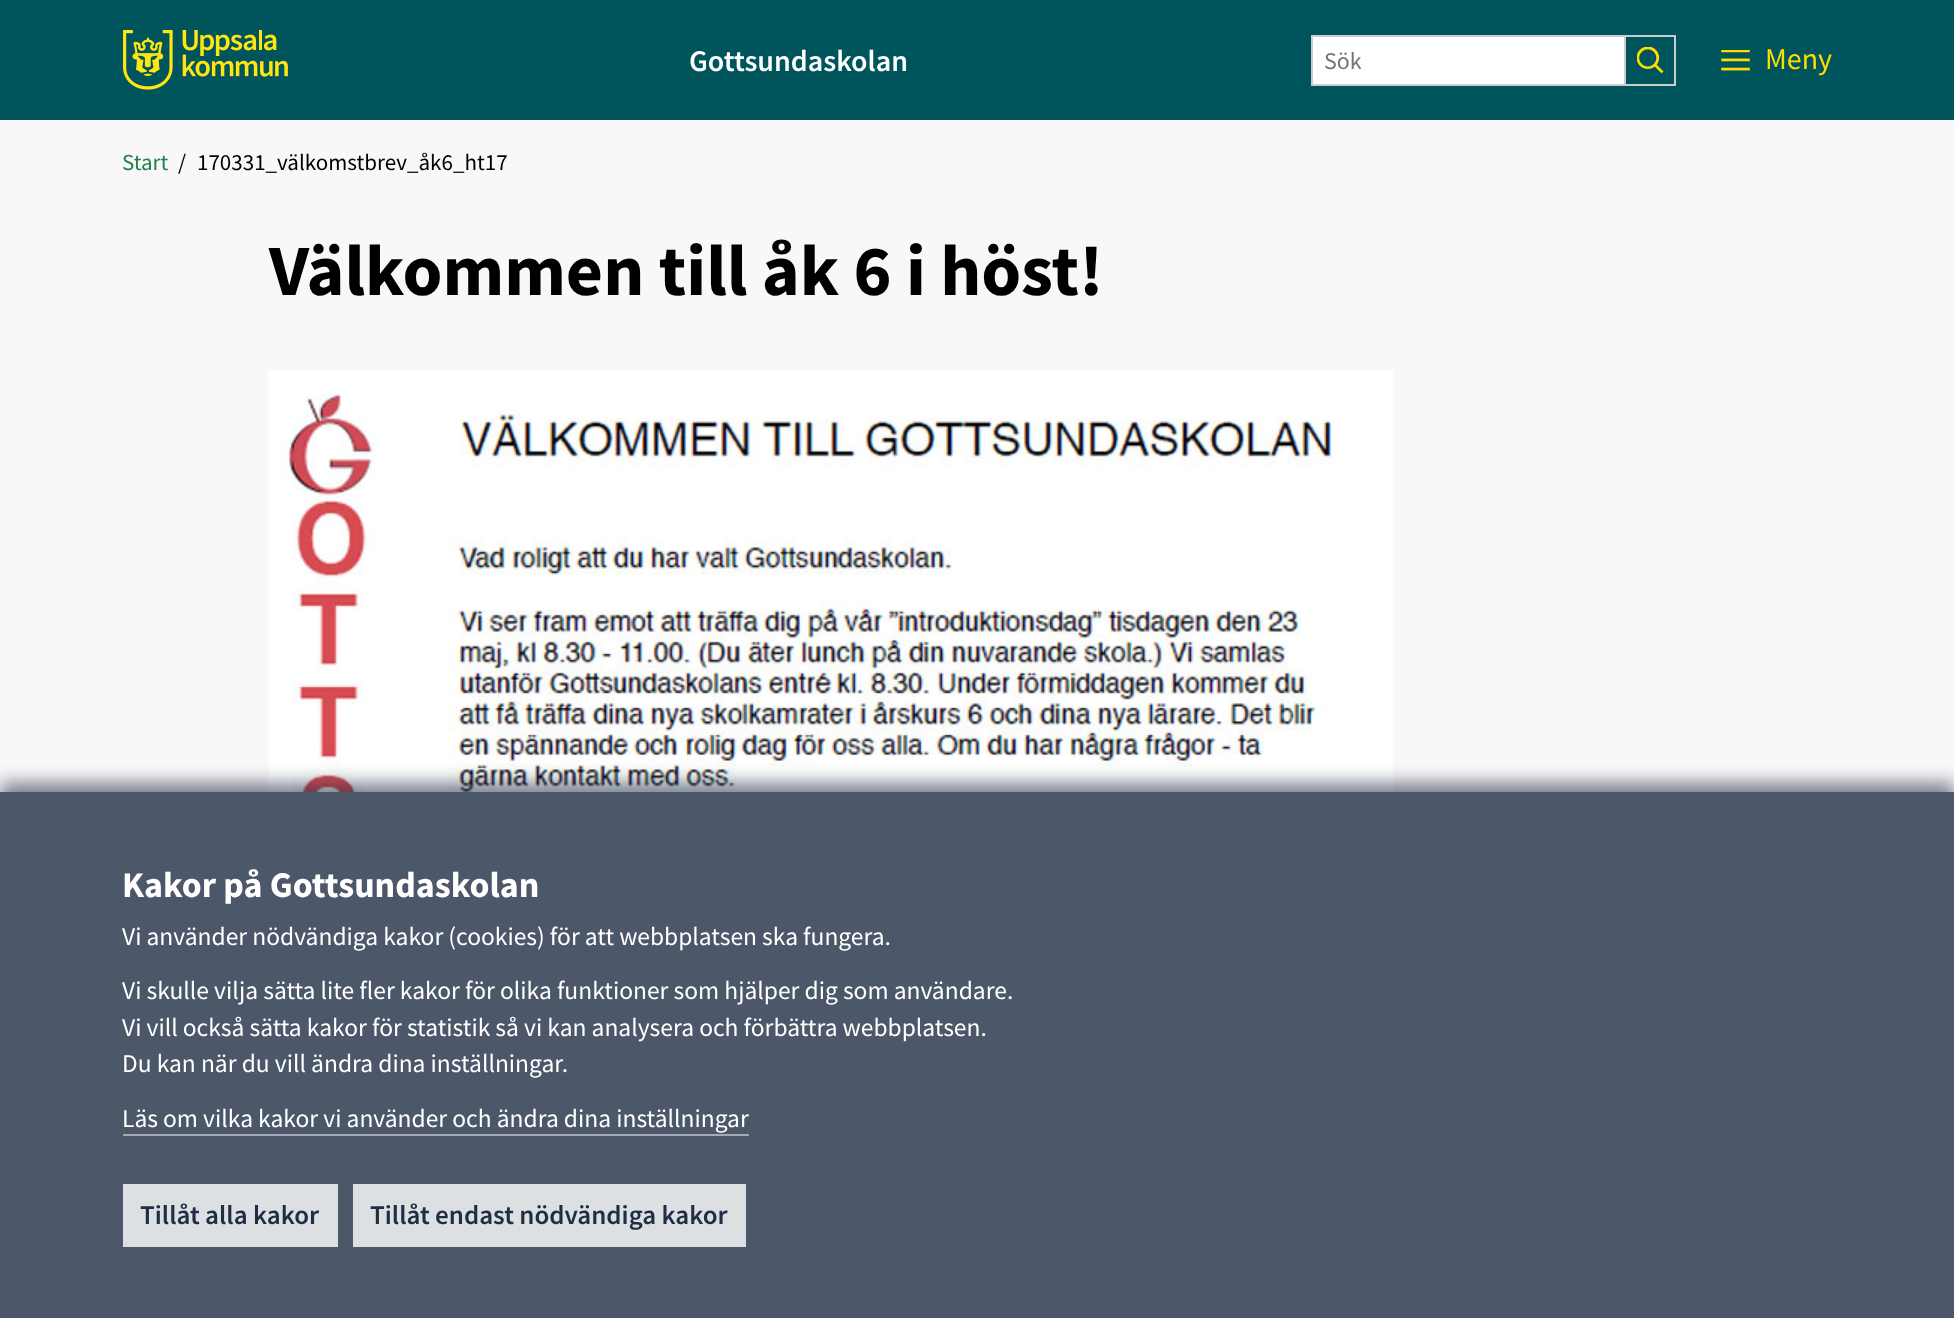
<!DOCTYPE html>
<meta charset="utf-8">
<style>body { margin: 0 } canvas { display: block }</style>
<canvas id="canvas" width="1954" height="1318"></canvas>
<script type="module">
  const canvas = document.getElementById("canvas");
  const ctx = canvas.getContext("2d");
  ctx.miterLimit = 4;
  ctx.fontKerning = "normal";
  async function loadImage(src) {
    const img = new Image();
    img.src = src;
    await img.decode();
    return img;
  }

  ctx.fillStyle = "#f9f7fa";
  ctx.fillRect(0, 0, 1954, 1318);
  ctx.fillStyle = "#00555c";
  ctx.fillRect(0, 0, 1954, 120);
  ctx.drawImage(await loadImage("img1.png"), 123, 30, 165, 60);
  ctx.font = "600 30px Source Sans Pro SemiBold";
  ctx.fillStyle = "#ffffff";
  ctx.fillText("Gottsundaskolan", 689, 71);
  ctx.beginPath();
  ctx.rect(1312, 36, 313, 49);
  ctx.fill();
  ctx.strokeStyle = "#cccccc";
  ctx.lineWidth = 2;
  ctx.stroke();
  ctx.font = "24px Source Sans Pro";
  ctx.fillStyle = "#757575";
  ctx.fillText("Sök", 1324, 69);
  ctx.drawImage(await loadImage("img2.png"), 1637, 47, 27, 27);
  ctx.fillStyle = "#cccccc";
  ctx.fillRect(1626, 35, 50, 2);
  ctx.fillRect(1674, 35, 2, 51);
  ctx.fillRect(1626, 84, 50, 2);
  ctx.drawImage(await loadImage("img3.png"), 1721, 50, 29, 21);
  ctx.font = "30px Source Sans Pro";
  ctx.fillStyle = "#ffdd00";
  ctx.fillText("Meny", 1765, 69);
  ctx.font = "23px Source Sans Pro";
  ctx.fillStyle = "#1e824c";
  ctx.fillText("Start", 122, 170);
  ctx.fillStyle = "#000000";
  ctx.fillText("/", 178, 170);
  ctx.fillText("170331_välkomstbrev_åk6_ht17", 197, 170);
  ctx.font = "bold 72px Source Sans Pro";
  ctx.fillText("Välkommen till åk 6 i höst!", 269, 295);
  ctx.drawImage(await loadImage("img4.png"), 268, 370, 1126, 422);
  ctx.fillStyle = "rgba(32, 46, 69, 0.61)";
  ctx.filter = "blur(9px)";
  ctx.beginPath();
  ctx.rect(0, 783, 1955, 527);
  ctx.fill();
  ctx.filter = "none";
  ctx.fillStyle = "#4c576a";
  ctx.fillRect(0, 792, 1954, 526);
  ctx.font = "bold 36px Source Sans Pro";
  ctx.fillStyle = "#ffffff";
  ctx.fillText("Kakor på Gottsundaskolan", 122, 897);
  ctx.font = "25.5px Source Sans Pro";
  ctx.fillText("Vi använder nödvändiga kakor (cookies) för att webbplatsen ska fungera.", 122, 945);
  ctx.fillText("Vi skulle vilja sätta lite fler kakor för olika funktioner som hjälper dig som användare.", 122, 999);
  ctx.fillText("Vi vill också sätta kakor för statistik så vi kan analysera och förbättra webbplatsen.", 122, 1036);
  ctx.fillText("Du kan när du vill ändra dina inställningar.", 122, 1072);
  ctx.fillText("Läs om vilka kakor vi använder och ändra dina inställningar", 122, 1127);
  ctx.fillStyle = "#a5abb4";
  ctx.fillRect(123, 1134, 626, 2);
  ctx.fillStyle = "#dde0e3";
  ctx.fillRect(123, 1184, 215, 63);
  ctx.font = "600 27px Source Sans Pro SemiBold";
  ctx.fillStyle = "#202e45";
  ctx.fillText("Tillåt alla kakor", 140, 1224);
  ctx.fillStyle = "#dde0e3";
  ctx.fillRect(353, 1184, 393, 63);
  ctx.fillStyle = "#202e45";
  ctx.fillText("Tillåt endast nödvändiga kakor", 370, 1224);
</script>
